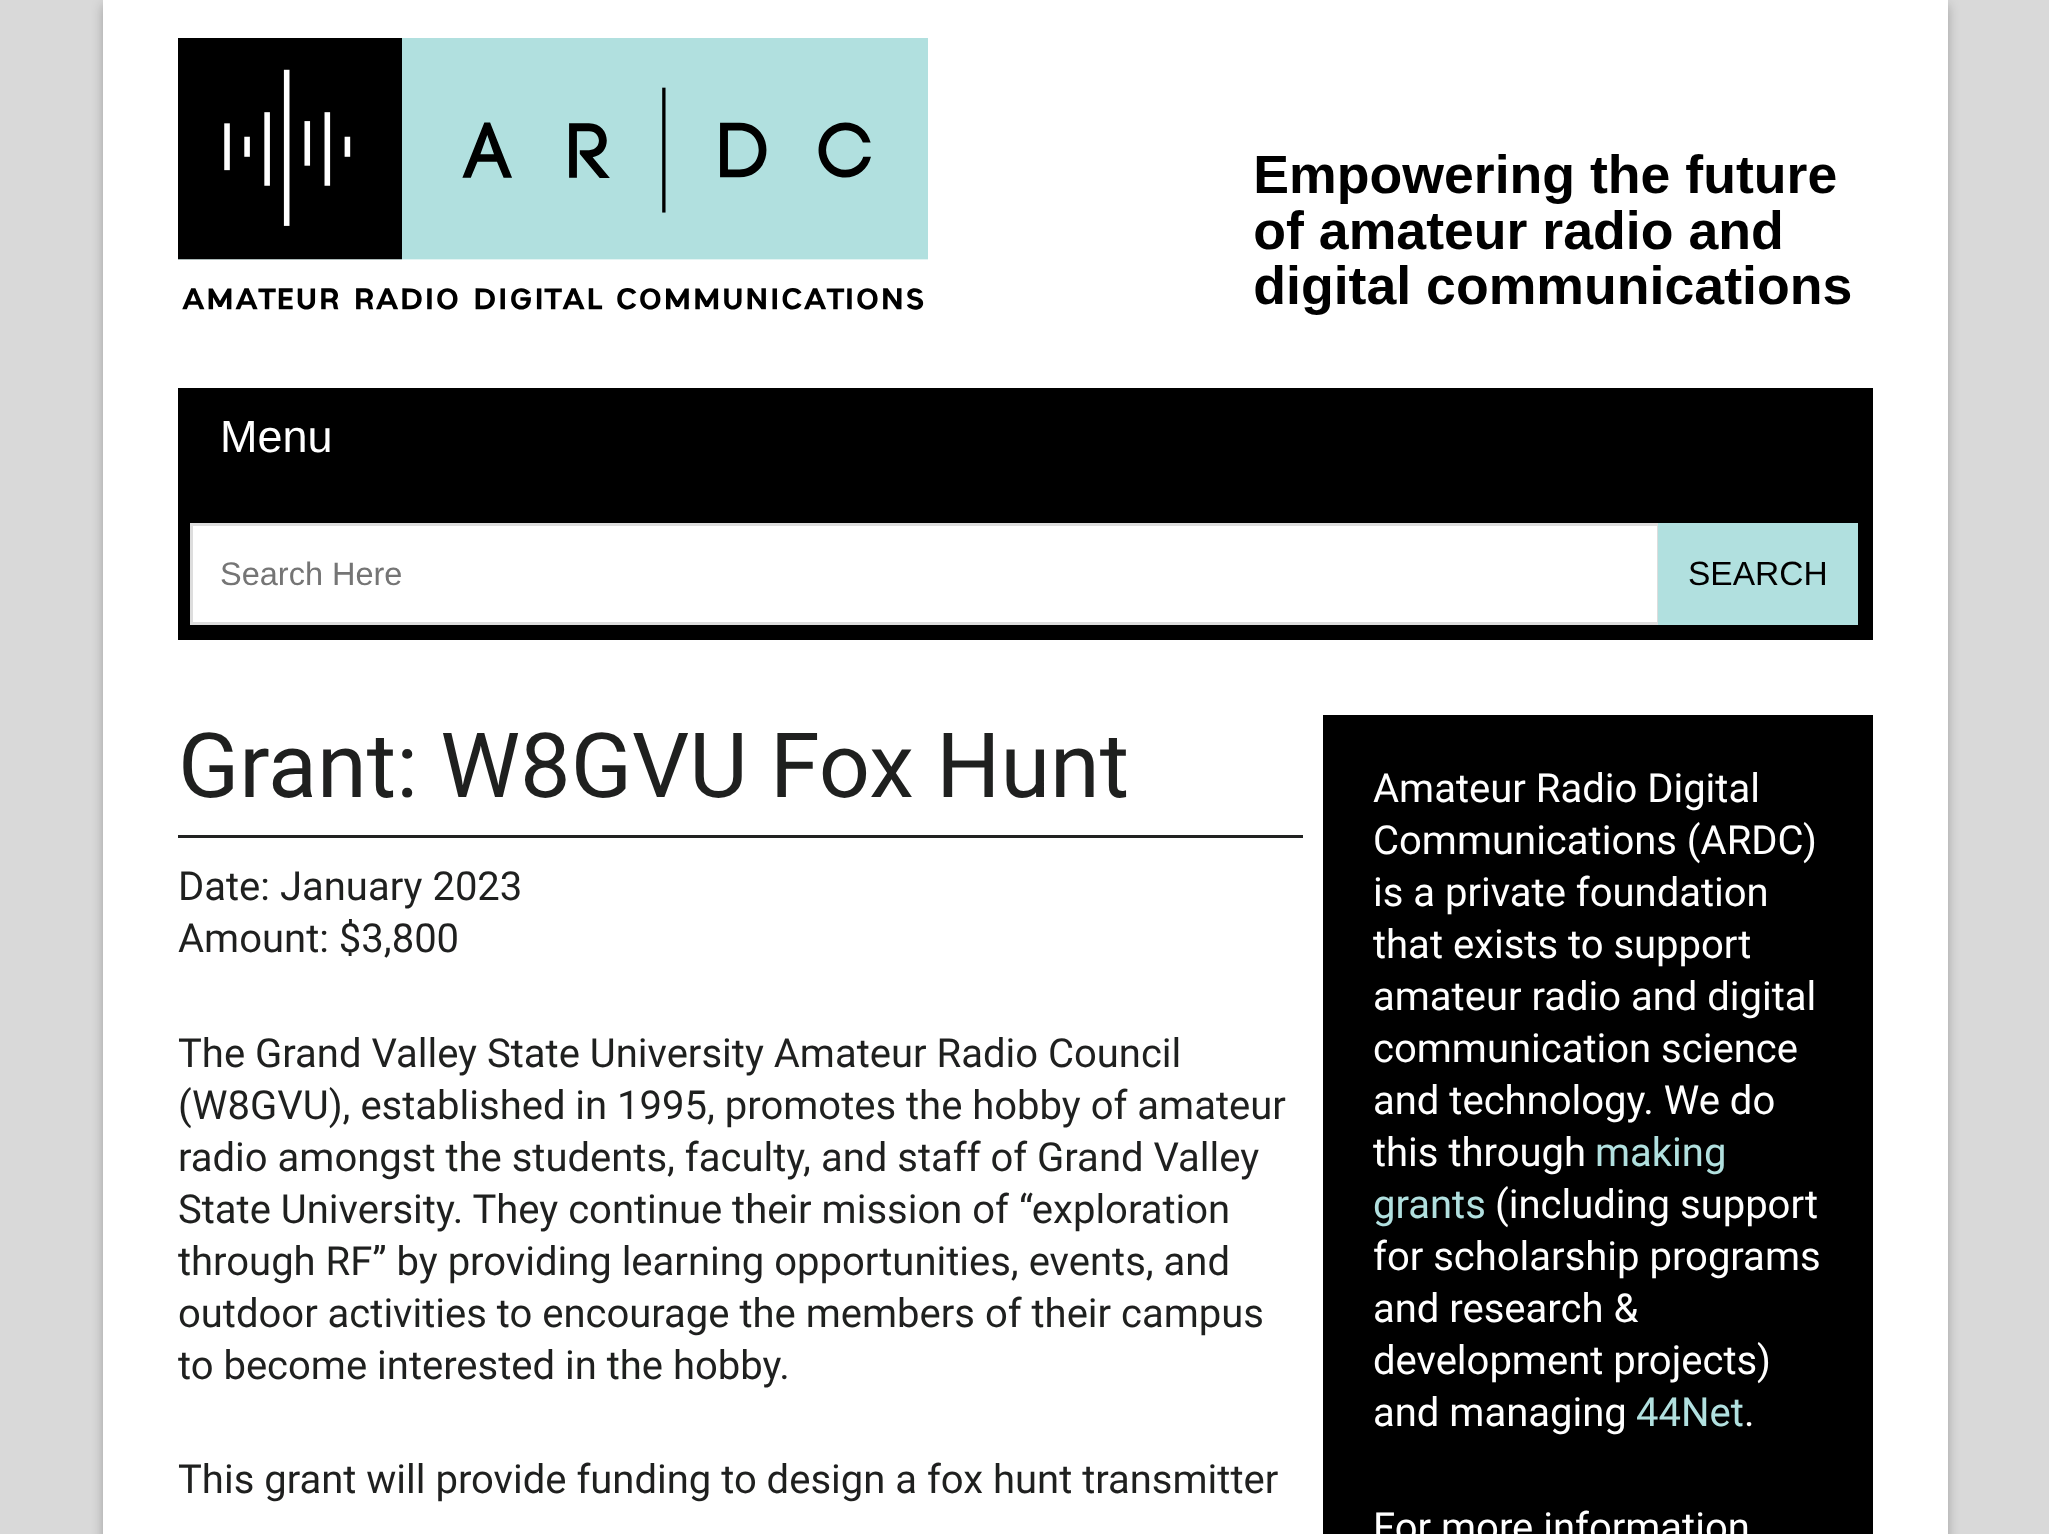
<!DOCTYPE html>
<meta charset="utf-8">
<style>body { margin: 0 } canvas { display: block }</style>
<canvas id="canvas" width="2049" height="1534"></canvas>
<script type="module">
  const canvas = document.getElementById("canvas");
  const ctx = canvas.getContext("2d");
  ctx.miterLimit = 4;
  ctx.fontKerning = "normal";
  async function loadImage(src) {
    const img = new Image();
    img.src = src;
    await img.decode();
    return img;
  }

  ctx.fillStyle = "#d9d9d9";
  ctx.fillRect(0, 0, 2049, 1534);
  ctx.fillStyle = "rgba(0, 0, 0, 0.26)";
  ctx.filter = "blur(6px)";
  ctx.beginPath();
  ctx.rect(103, 5, 1845, 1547);
  ctx.fill();
  ctx.filter = "none";
  ctx.fillStyle = "#ffffff";
  ctx.fillRect(103, 0, 1845, 1534);
  ctx.drawImage(await loadImage("img1.png"), 178, 38, 1673, 277);
  ctx.fillStyle = "#000000";
  ctx.fillRect(178, 388, 1695, 252);
  ctx.font = "45px Liberation Sans";
  ctx.fillStyle = "#ffffff";
  ctx.fillText("Menu", 220, 452);
  ctx.beginPath();
  ctx.rect(191.5, 524.5, 1467, 99);
  ctx.fill();
  ctx.strokeStyle = "#dddddd";
  ctx.lineWidth = 3;
  ctx.stroke();
  ctx.font = "32.5px Liberation Sans";
  ctx.fillStyle = "#757575";
  ctx.fillText("Search Here", 220, 585);
  ctx.fillStyle = "#b1e0df";
  ctx.fillRect(1658, 523, 200, 102);
  ctx.font = "33.5px Liberation Sans";
  ctx.fillStyle = "#000000";
  ctx.fillText("SEARCH", 1688, 585);
  ctx.fillStyle = "#212221";
  ctx.fillRect(178, 835, 1125, 3);
  ctx.font = "90px Roboto";
  ctx.fillStyle = "#1f201f";
  ctx.fillText("Grant: W8GVU Fox Hunt", 178, 797);
  ctx.font = "40px Roboto";
  ctx.fillText("Date: January 2023", 178, 900);
  ctx.fillText("Amount: $3,800", 178, 952);
  ctx.fillText("The Grand Valley State University Amateur Radio Council", 178, 1067);
  ctx.fillText("(W8GVU), established in 1995, promotes the hobby of amateur", 178, 1119);
  ctx.fillText("radio amongst the students, faculty, and staff of Grand Valley", 178, 1171);
  ctx.fillText("State University. They continue their mission of “exploration", 178, 1223);
  ctx.fillText("through RF” by providing learning opportunities, events, and", 178, 1275);
  ctx.fillText("outdoor activities to encourage the members of their campus", 178, 1327);
  ctx.fillText("to become interested in the hobby.", 178, 1379);
  ctx.fillText("This grant will provide funding to design a fox hunt transmitter", 178, 1493);
  ctx.fillStyle = "#000000";
  ctx.fillRect(1323, 715, 550, 819);
  ctx.fillStyle = "#ffffff";
  ctx.fillText("Amateur Radio Digital", 1373, 802);
  ctx.fillText("Communications (ARDC)", 1373, 854);
  ctx.fillText("is a private foundation", 1373, 906);
  ctx.fillText("that exists to support", 1373, 958);
  ctx.fillText("amateur radio and digital", 1373, 1010);
  ctx.fillText("communication science", 1373, 1062);
  ctx.fillText("and technology. We do", 1373, 1114);
  ctx.fillText("this through", 1373, 1166);
  ctx.fillStyle = "#b1e0df";
  ctx.fillText("making", 1595, 1166);
  ctx.fillText("grants", 1373, 1218);
  ctx.fillStyle = "#ffffff";
  ctx.fillText("(including support", 1495, 1218);
  ctx.fillText("for scholarship programs", 1373, 1270);
  ctx.fillText("and research &", 1373, 1322);
  ctx.fillText("development projects)", 1373, 1374);
  ctx.fillText("and managing", 1373, 1426);
  ctx.fillStyle = "#b1e0df";
  ctx.fillText("44Net", 1636, 1426);
  ctx.fillStyle = "#ffffff";
  ctx.fillText(".", 1744, 1426);
  ctx.fillText("For more information", 1373, 1541);
</script>
